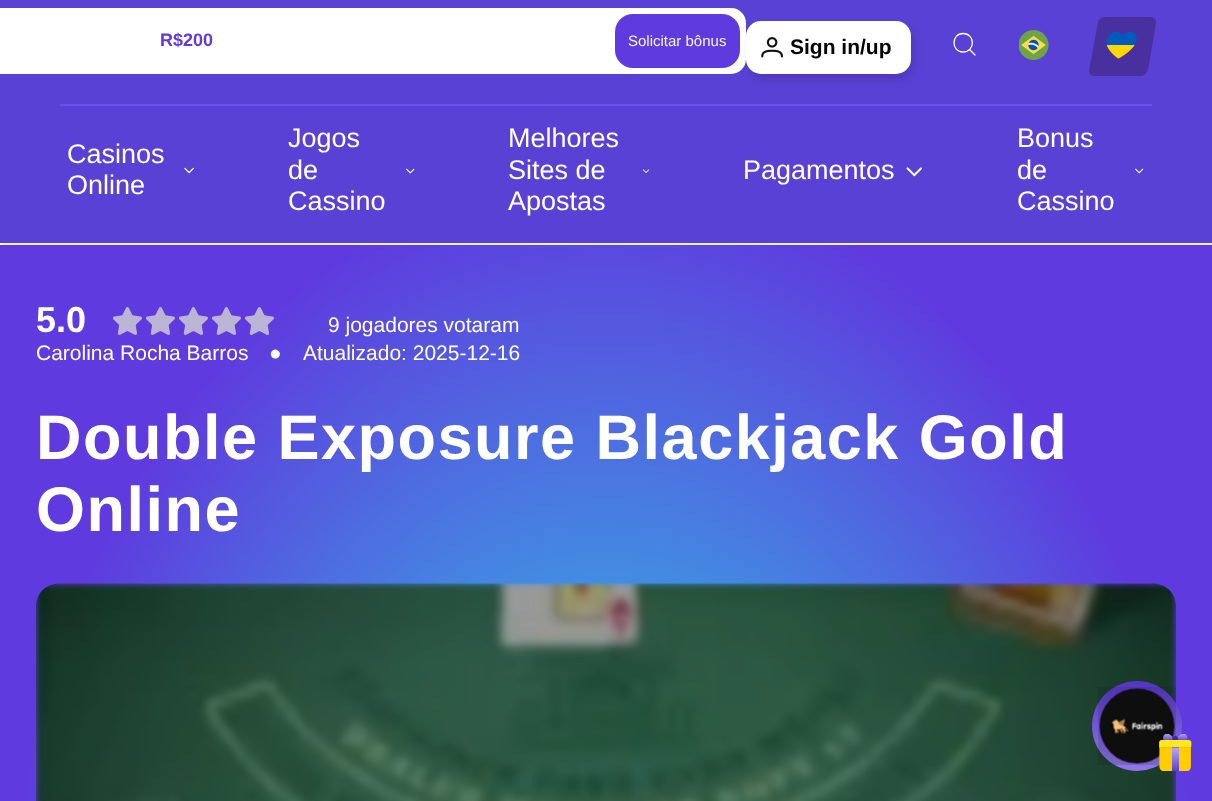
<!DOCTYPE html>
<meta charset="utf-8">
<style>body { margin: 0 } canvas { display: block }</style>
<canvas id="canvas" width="1212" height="801"></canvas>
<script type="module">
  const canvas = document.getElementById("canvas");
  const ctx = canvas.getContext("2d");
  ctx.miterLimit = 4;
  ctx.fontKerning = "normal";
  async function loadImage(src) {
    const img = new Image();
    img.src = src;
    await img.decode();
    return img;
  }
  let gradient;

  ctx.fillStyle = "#ffffff";
  ctx.fillRect(0, 0, 1212, 801);
  ctx.fillStyle = "#5a41d6";
  ctx.fillRect(0, 0, 1212, 243);
  ctx.fillStyle = "#6a51e7";
  ctx.fillRect(60, 104, 1092, 2);
  ctx.fillStyle = "#ffffff";
  ctx.beginPath();
  ctx.roundRect(-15, 8, 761, 66, 15);
  ctx.fill();
  ctx.font = "bold 18px Liberation Sans";
  ctx.fillStyle = "#5f3ade";
  ctx.fillText("R$200", 160, 46);
  ctx.beginPath();
  ctx.roundRect(615, 14, 125, 54, 18);
  ctx.fill();
  ctx.font = "15px Liberation Sans";
  ctx.fillStyle = "#f4f5f6";
  ctx.fillText("Solicitar bônus", 628, 46);
  ctx.fillStyle = "rgba(0, 0, 0, 0.12)";
  ctx.filter = "blur(4.5px)";
  ctx.beginPath();
  ctx.roundRect(749, 27, 165, 53, 15);
  ctx.fill();
  ctx.filter = "none";
  ctx.fillStyle = "#ffffff";
  ctx.beginPath();
  ctx.roundRect(746, 21, 165, 53, 15);
  ctx.fill();
  ctx.drawImage(await loadImage("img1.png"), 761, 37, 22, 21);
  ctx.font = "bold 21px Liberation Sans";
  ctx.fillStyle = "#000000";
  ctx.fillText("Sign in/up", 790, 54);
  ctx.beginPath();
  ctx.moveTo(963, 52);
  ctx.bezierCurveTo(975.5, 52, 975.5, 33.5, 963, 33.5);
  ctx.bezierCurveTo(951, 33.5, 951, 52, 963, 52);
  ctx.closePath();
  ctx.moveTo(975, 55);
  ctx.lineTo(969.5, 49.5);
  ctx.strokeStyle = "#ffffff";
  ctx.lineWidth = 1.3;
  ctx.lineCap = "round";
  ctx.lineJoin = "round";
  ctx.stroke();
  ctx.drawImage(await loadImage("img2.png"), 1019, 30, 30, 30);
  ctx.fillStyle = "#48309f";
  ctx.beginPath();
  ctx.moveTo(1105, 17);
  ctx.lineTo(1151, 17);
  ctx.bezierCurveTo(1154, 17, 1157, 20, 1156, 23);
  ctx.lineTo(1148, 70);
  ctx.bezierCurveTo(1147, 73, 1144, 76, 1141, 76);
  ctx.lineTo(1094, 76);
  ctx.bezierCurveTo(1091, 76, 1089, 73, 1089, 70);
  ctx.lineTo(1098, 23);
  ctx.bezierCurveTo(1098, 20, 1101, 17, 1105, 17);
  ctx.closePath();
  ctx.fill();
  ctx.drawImage(await loadImage("img3.png"), 1106, 31, 31, 28);
  ctx.font = "27px Liberation Sans";
  ctx.fillStyle = "#ffffff";
  ctx.fillText("Casinos", 67, 163);
  ctx.fillText("Online", 67, 194);
  ctx.drawImage(await loadImage("img4.png"), 184, 167, 10, 7);
  ctx.fillText("Jogos", 288, 147);
  ctx.fillText("de", 288, 179);
  ctx.fillText("Cassino", 288, 210);
  ctx.drawImage(await loadImage("img5.png"), 406, 168, 9, 6);
  ctx.fillText("Melhores", 508, 147);
  ctx.fillText("Sites de", 508, 179);
  ctx.fillText("Apostas", 508, 210);
  ctx.drawImage(await loadImage("img6.png"), 642, 169, 8, 4);
  ctx.fillText("Pagamentos", 743, 179);
  ctx.drawImage(await loadImage("img7.png"), 906, 167, 16, 10);
  ctx.fillText("Bonus", 1017, 147);
  ctx.fillText("de", 1017, 179);
  ctx.fillText("Cassino", 1017, 210);
  ctx.drawImage(await loadImage("img8.png"), 1135, 168, 9, 6);
  ctx.fillStyle = "#efeff0";
  ctx.fillRect(3, 243, 1209, 2);
  gradient = ctx.createRadialGradient(606, 730.37, 0, 606, 730.37, 857);
  gradient.addColorStop(0, "#28dae5");
  gradient.addColorStop(0.7, "#5f3ade");
  ctx.fillStyle = gradient;
  ctx.beginPath();
  ctx.rect(0, 245, 1212, 556);
  ctx.save();
  ctx.clip();
  ctx.scale(1, 1137 / 857);
  ctx.fillRect(0, 0, 1212, 604);
  ctx.restore();
  ctx.font = "bold 36px Liberation Sans";
  ctx.fillStyle = "#ffffff";
  ctx.fillText("5.0", 36, 332);
  ctx.drawImage(await loadImage("img9.png"), 113, 307, 29, 28);
  ctx.drawImage(await loadImage("img9.png"), 146, 307, 29, 28);
  ctx.drawImage(await loadImage("img9.png"), 179, 307, 29, 28);
  ctx.drawImage(await loadImage("img9.png"), 212, 307, 29, 28);
  ctx.drawImage(await loadImage("img10.png"), 245, 307, 29, 28);
  ctx.font = "21px Liberation Sans";
  ctx.fillText("9 jogadores votaram", 328, 332);
  ctx.fillText("Carolina Rocha Barros", 36, 360);
  ctx.fillText("●", 269, 360);
  ctx.fillText("Atualizado: 2025-12-16", 303, 360);
  ctx.letterSpacing = "1.5px";
  ctx.font = "bold 63px Liberation Sans";
  ctx.fillText("Double Exposure Blackjack Gold", 36, 459);
  ctx.fillText("Online", 36, 531);
  ctx.drawImage(await loadImage("img11.png"), 36, 583, 1140, 218);
  gradient = ctx.createLinearGradient(1137, 681, 1137, 771);
  gradient.addColorStop(0, "#5434c3");
  gradient.addColorStop(1, "#9178ea");
  ctx.fillStyle = gradient;
  ctx.beginPath();
  ctx.arc(1137, 726, 45, 0, Math.PI * 2);
  ctx.fill();
  ctx.drawImage(await loadImage("img12.png"), 1098, 687, 78, 78);
  ctx.drawImage(await loadImage("img13.png"), 1159, 734, 33, 37);
</script>
